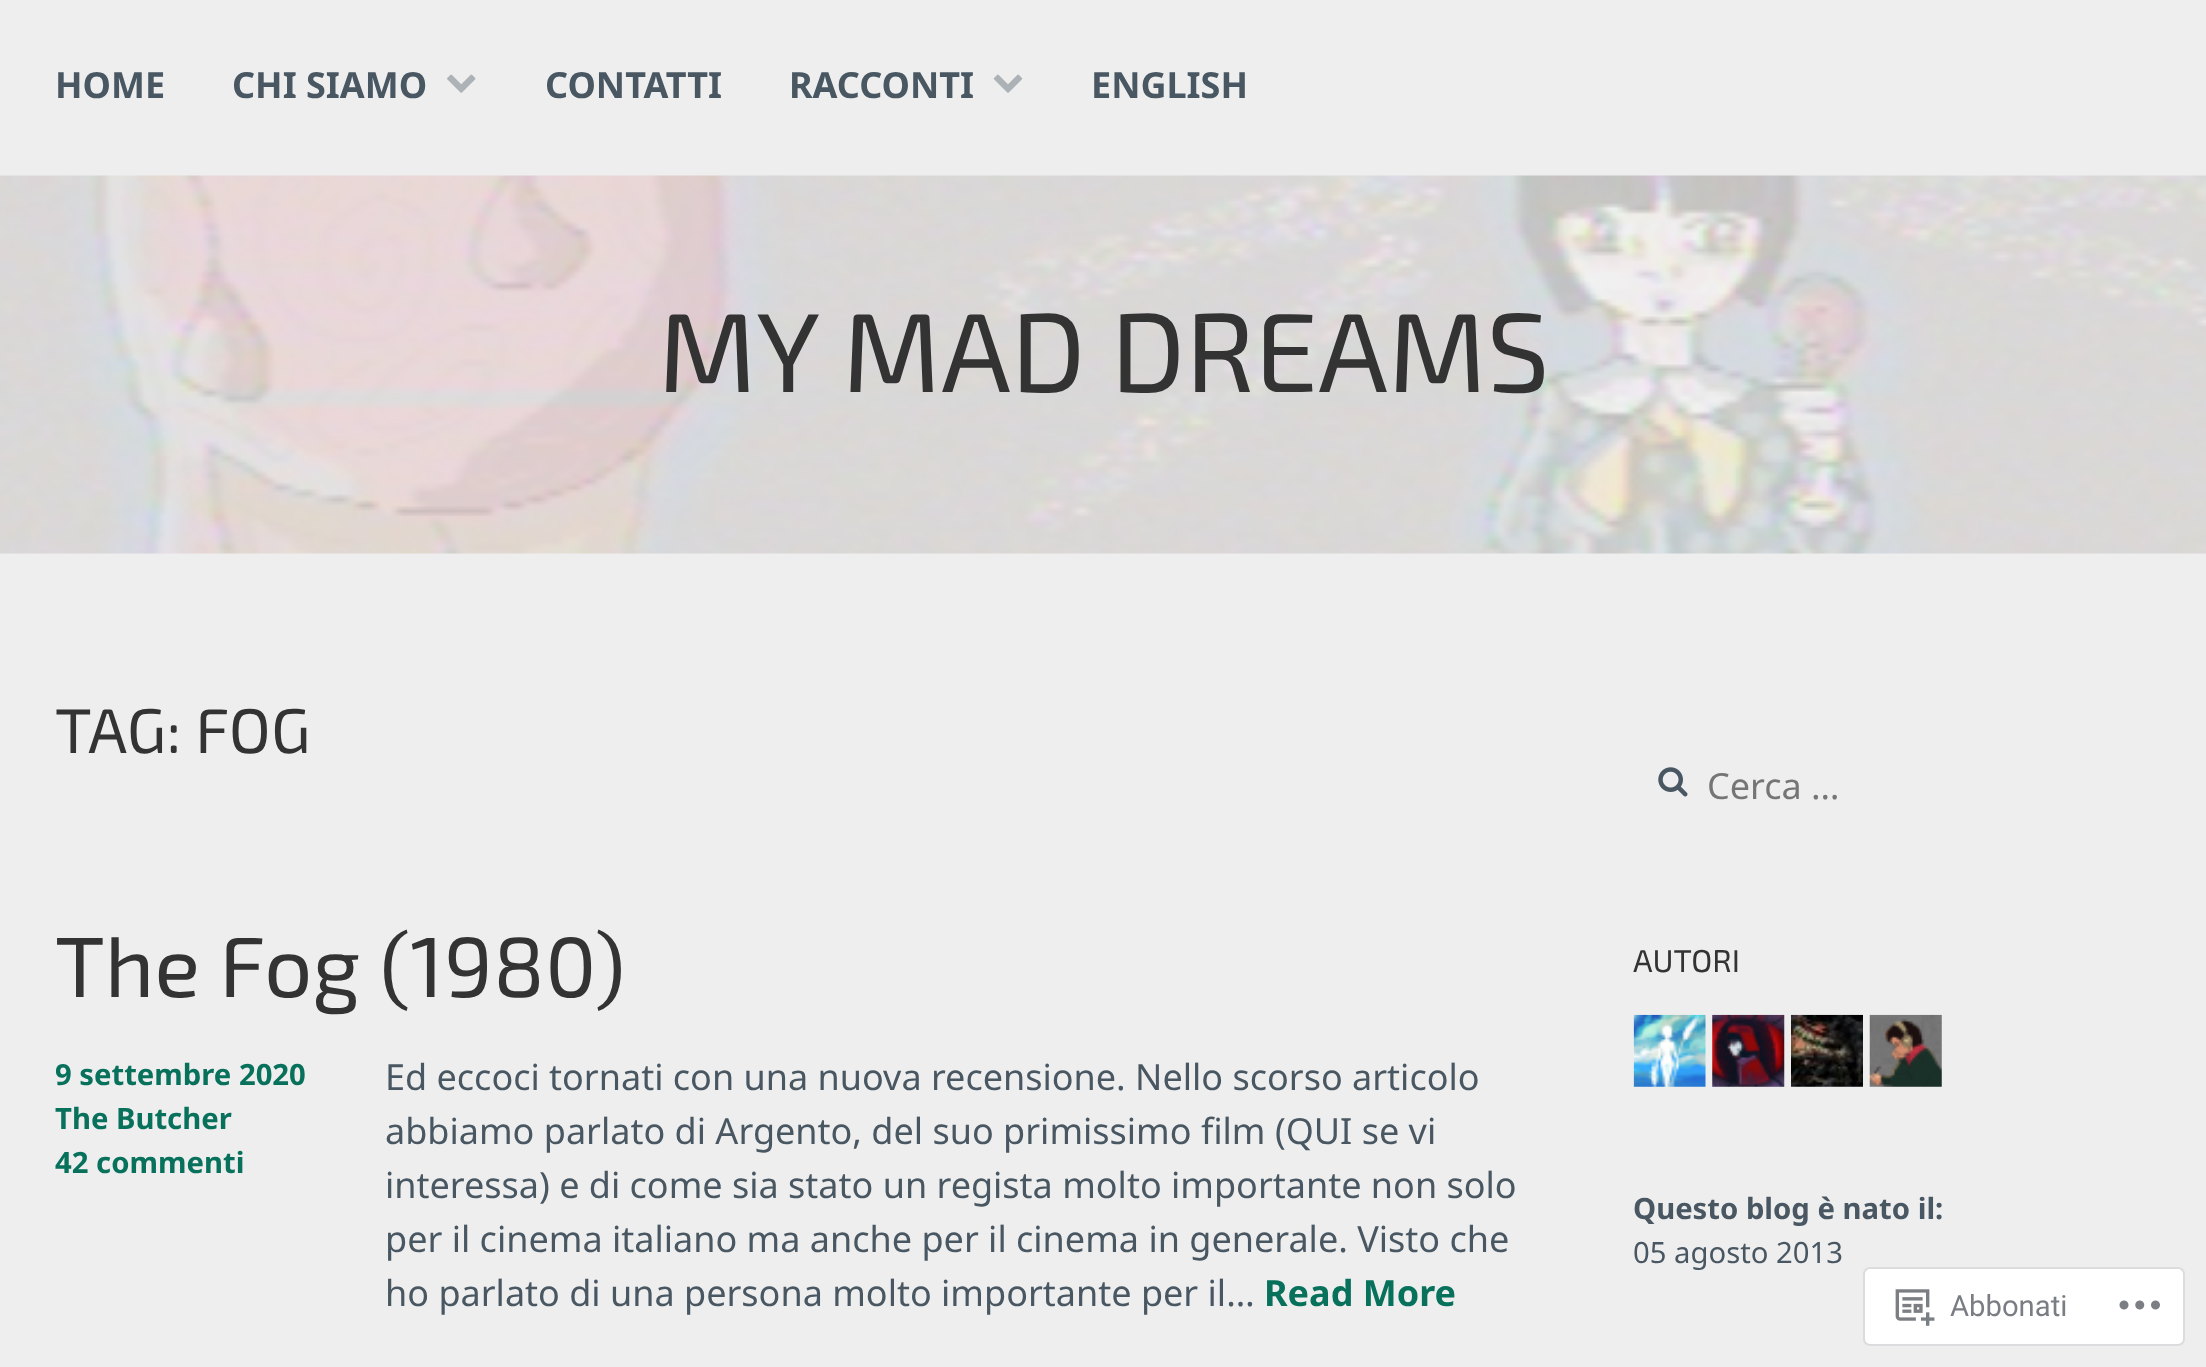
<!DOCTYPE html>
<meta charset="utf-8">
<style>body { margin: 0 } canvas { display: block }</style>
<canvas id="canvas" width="2206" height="1367"></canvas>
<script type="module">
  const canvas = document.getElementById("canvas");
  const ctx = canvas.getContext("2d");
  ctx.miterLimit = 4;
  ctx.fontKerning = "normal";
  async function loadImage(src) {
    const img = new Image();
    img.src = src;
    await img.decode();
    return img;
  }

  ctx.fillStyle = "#eeeeee";
  ctx.fillRect(0, 0, 2206, 1367);
  ctx.font = "bold 36px Noto Sans";
  ctx.fillStyle = "#495762";
  ctx.fillText("HOME", 55, 98);
  ctx.fillText("CHI SIAMO", 232, 98);
  ctx.drawImage(await loadImage("img1.png"), 447, 74, 29, 19);
  ctx.fillText("CONTATTI", 545, 98);
  ctx.fillText("RACCONTI", 789, 98);
  ctx.drawImage(await loadImage("img2.png"), 993, 74, 30, 19);
  ctx.fillText("ENGLISH", 1091, 98);
  ctx.drawImage(await loadImage("img3.png"), 0, 175, 2206, 379);
  ctx.font = "112.5px 'Exo 2'";
  ctx.fillStyle = "#333333";
  ctx.fillText("MY MAD DREAMS", 658, 392);
  ctx.font = "63px 'Exo 2'";
  ctx.fillText("TAG: FOG", 55, 753);
  ctx.font = "85.5px 'Exo 2'";
  ctx.fillText("The Fog (1980)", 55, 997);
  ctx.font = "bold 29.25px Noto Sans";
  ctx.fillStyle = "#08715c";
  ctx.fillText("9 settembre 2020", 55, 1085);
  ctx.fillText("The Butcher", 55, 1129);
  ctx.fillText("42 commenti", 55, 1173);
  ctx.font = "36px Noto Sans";
  ctx.fillStyle = "#495762";
  ctx.fillText("Ed eccoci tornati con una nuova recensione. Nello scorso articolo", 385, 1090);
  ctx.fillText("abbiamo parlato di Argento, del suo primissimo film (QUI se vi", 385, 1144);
  ctx.fillText("interessa) e di come sia stato un regista molto importante non solo", 385, 1198);
  ctx.fillText("per il cinema italiano ma anche per il cinema in generale. Visto che", 385, 1252);
  ctx.fillText("ho parlato di una persona molto importante per il…", 385, 1306);
  ctx.font = "bold 36px Noto Sans";
  ctx.fillStyle = "#08715c";
  ctx.fillText("Read More", 1264, 1306);
  ctx.drawImage(await loadImage("img4.png"), 1658, 767, 30, 30);
  ctx.font = "36px Noto Sans";
  ctx.fillStyle = "#757575";
  ctx.fillText("Cerca …", 1707, 799);
  ctx.font = "31.5px 'Exo 2'";
  ctx.fillStyle = "#333333";
  ctx.fillText("AUTORI", 1633, 972);
  ctx.drawImage(await loadImage("img5.png"), 1633, 1014, 73, 73);
  ctx.drawImage(await loadImage("img6.png"), 1712, 1014, 73, 73);
  ctx.drawImage(await loadImage("img7.png"), 1791, 1014, 72, 73);
  ctx.drawImage(await loadImage("img8.png"), 1869, 1014, 73, 73);
  ctx.font = "bold 29.25px Noto Sans";
  ctx.fillStyle = "#495762";
  ctx.fillText("Questo blog è nato il:", 1633, 1219);
  ctx.font = "29.25px Noto Sans";
  ctx.fillText("05 agosto 2013", 1633, 1263);
  ctx.fillStyle = "#ffffff";
  ctx.beginPath();
  ctx.roundRect(1864, 1268, 320, 77, 6);
  ctx.fill();
  ctx.strokeStyle = "#dcdcde";
  ctx.lineWidth = 2;
  ctx.stroke();
  ctx.drawImage(await loadImage("img9.png"), 1895, 1289, 40, 37);
  ctx.font = "29.25px Roboto";
  ctx.fillStyle = "#7a7e84";
  ctx.fillText("Abbonati", 1950, 1316);
  ctx.drawImage(await loadImage("img10.png"), 2119, 1300, 41, 10);
</script>
